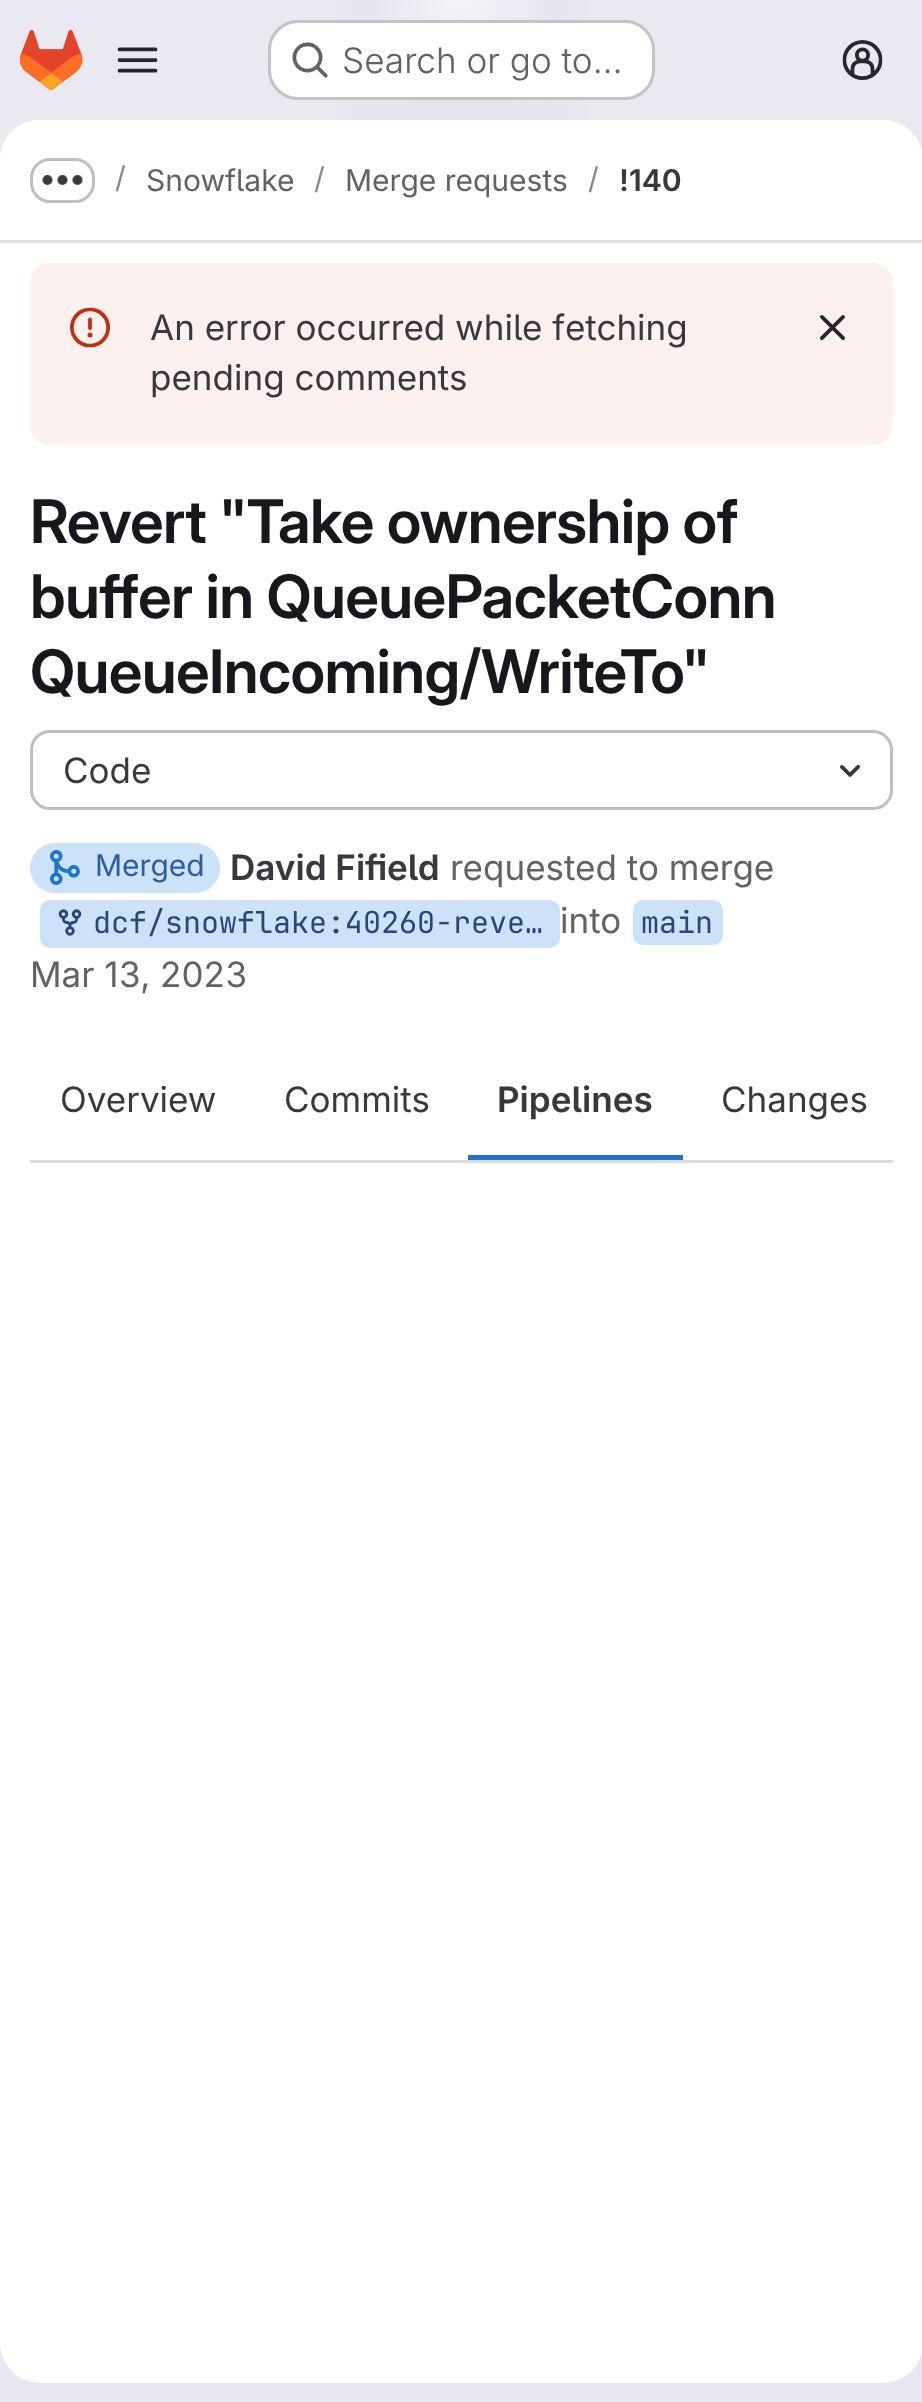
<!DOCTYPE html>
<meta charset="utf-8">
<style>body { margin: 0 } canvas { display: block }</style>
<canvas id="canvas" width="922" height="2402"></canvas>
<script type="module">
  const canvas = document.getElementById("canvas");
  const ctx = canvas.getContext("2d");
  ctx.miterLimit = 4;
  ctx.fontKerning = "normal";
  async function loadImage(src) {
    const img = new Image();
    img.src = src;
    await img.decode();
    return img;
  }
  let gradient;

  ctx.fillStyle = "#ffffff";
  ctx.fillRect(0, 0, 922, 2402);
  gradient = ctx.createLinearGradient(681, 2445, 242, -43);
  gradient.addColorStop(0, "#e8e6f0");
  gradient.addColorStop(0.7, "#eae9f2");
  ctx.fillStyle = gradient;
  ctx.fillRect(0, 0, 922, 2402);
  gradient = ctx.createRadialGradient(461, 0, 0, 461, 0, 461);
  gradient.addColorStop(0, "#e4e2ed");
  gradient.addColorStop(0.38, "rgba(228, 226, 237, 0)");
  ctx.fillStyle = gradient;
  ctx.beginPath();
  ctx.rect(334, 0, 254, 120);
  ctx.save();
  ctx.clip();
  ctx.scale(1, 2403 / 461);
  ctx.fillRect(0, 0, 922, 461);
  ctx.restore();
  gradient = ctx.createRadialGradient(461, 0, 0, 461, 0, 461);
  gradient.addColorStop(0, "#e4e2ec");
  gradient.addColorStop(0.27, "rgba(228, 226, 236, 0)");
  ctx.fillStyle = gradient;
  ctx.beginPath();
  ctx.rect(409, 22, 104, 82);
  ctx.save();
  ctx.clip();
  ctx.scale(1, 2403 / 461);
  ctx.fillRect(0, 0, 922, 461);
  ctx.restore();
  gradient = ctx.createRadialGradient(461, 0, 0, 461, 0, 2446);
  gradient.addColorStop(0, "rgba(255, 255, 255, 0.6)");
  gradient.addColorStop(0.04, "rgba(255, 255, 255, 0)");
  ctx.fillStyle = gradient;
  ctx.fillRect(379, 0, 164, 83);
  ctx.drawImage(await loadImage("img1.png"), 20, 30, 63, 60);
  ctx.drawImage(await loadImage("img2.png"), 117, 47, 41, 26);
  ctx.fillStyle = "#ffffff";
  ctx.beginPath();
  ctx.roundRect(268, 20, 387, 80, 30);
  ctx.fill();
  ctx.beginPath();
  ctx.roundRect(269.5, 21.5, 384, 77, 28.5);
  ctx.strokeStyle = "rgba(5, 5, 6, 0.24)";
  ctx.lineWidth = 3;
  ctx.stroke();
  ctx.drawImage(await loadImage("img3.png"), 292, 42, 36, 36);
  ctx.font = "300 35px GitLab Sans";
  ctx.fillStyle = "#626168";
  ctx.fillText("Search or go to…", 342, 73);
  ctx.drawImage(await loadImage("img4.png"), 842, 40, 41, 40);
  ctx.fillStyle = "#ffffff";
  ctx.beginPath();
  ctx.roundRect(0, 120, 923, 2263, 40);
  ctx.fill();
  ctx.beginPath();
  ctx.moveTo(40, 120);
  ctx.lineTo(883, 120);
  ctx.bezierCurveTo(905, 120, 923, 138, 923, 160);
  ctx.lineTo(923, 243);
  ctx.lineTo(0, 243);
  ctx.lineTo(0, 160);
  ctx.bezierCurveTo(0, 138, 18, 120, 40, 120);
  ctx.closePath();
  ctx.fill();
  ctx.fillStyle = "#e1dfec";
  ctx.fillRect(0, 240, 922, 3);
  ctx.beginPath();
  ctx.roundRect(31.5, 159.5, 62, 42, 18.5);
  ctx.strokeStyle = "#bfbfc3";
  ctx.stroke();
  ctx.drawImage(await loadImage("img5.png"), 42, 175, 41, 10);
  ctx.font = "30px GitLab Sans";
  ctx.fillStyle = "#89888d";
  ctx.fillText("/", 115, 188);
  ctx.fillStyle = "#626168";
  ctx.fillText("Snowflake", 146, 191);
  ctx.fillStyle = "#89888d";
  ctx.fillText("/", 314, 189);
  ctx.fillStyle = "#626168";
  ctx.fillText("Merge requests", 345, 191);
  ctx.fillStyle = "#89888d";
  ctx.fillText("/", 588, 189);
  ctx.font = "600 30px 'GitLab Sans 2'";
  ctx.fillStyle = "#3a383f";
  ctx.fillText("!140", 619, 191);
  ctx.fillStyle = "#fcf1ef";
  ctx.beginPath();
  ctx.roundRect(30, 263, 863, 182, 20);
  ctx.fill();
  ctx.drawImage(await loadImage("img6.png"), 70, 307, 40, 41);
  ctx.font = "35px GitLab Sans";
  ctx.fillStyle = "#3a383f";
  ctx.fillText("An error occurred while fetching", 150, 340);
  ctx.fillText("pending comments", 150, 390);
  ctx.drawImage(await loadImage("img7.png"), 819, 315, 26, 26);
  ctx.letterSpacing = "-0.6px";
  ctx.font = "600 60px GitLab Sans";
  ctx.fillStyle = "#18171d";
  ctx.fillText("Revert \"Take ownership of", 30, 543);
  ctx.fillText("buffer in QueuePacketConn", 30, 618);
  ctx.fillText("QueueIncoming/WriteTo\"", 30, 693);
  ctx.beginPath();
  ctx.roundRect(31.5, 731.5, 860, 77, 18.5);
  ctx.stroke();
  ctx.letterSpacing = "0px";
  ctx.font = "35px GitLab Sans";
  ctx.fillStyle = "#3a383f";
  ctx.fillText("Code", 63, 783);
  ctx.drawImage(await loadImage("img8.png"), 839, 764, 22, 13);
  ctx.fillStyle = "#dcdcde";
  ctx.fillRect(30, 1160, 863, 3);
  ctx.fillStyle = "#cbe2f9";
  ctx.beginPath();
  ctx.roundRect(30, 843, 190, 50, 25);
  ctx.fill();
  ctx.drawImage(await loadImage("img9.png"), 50, 850, 30, 35);
  ctx.font = "30px GitLab Sans";
  ctx.fillStyle = "#2f5ca0";
  ctx.fillText("Merged", 95, 876);
  ctx.font = "600 35px 'GitLab Sans 2'";
  ctx.fillStyle = "#3a383f";
  ctx.fillText("David Fifield", 230, 880);
  ctx.font = "35px GitLab Sans";
  ctx.fillStyle = "#626168";
  ctx.fillText("requested to merge", 450, 880);
  ctx.fillStyle = "#cbe2f9";
  ctx.beginPath();
  ctx.roundRect(40, 900, 520, 48, 10);
  ctx.fill();
  ctx.drawImage(await loadImage("img10.png"), 58, 909, 24, 27);
  ctx.font = "30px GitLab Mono";
  ctx.fillStyle = "#284779";
  ctx.fillText("dcf/snowflake:40260-reve…", 93, 933);
  ctx.font = "35px GitLab Sans";
  ctx.fillStyle = "#626168";
  ctx.fillText("into", 560, 933);
  ctx.fillStyle = "#cbe2f9";
  ctx.beginPath();
  ctx.roundRect(633, 900, 90, 45, 10);
  ctx.fill();
  ctx.font = "30px GitLab Mono";
  ctx.fillStyle = "#284779";
  ctx.fillText("main", 641, 933);
  ctx.font = "35px GitLab Sans";
  ctx.fillStyle = "#626168";
  ctx.fillText("Mar 13, 2023", 30, 987);
  ctx.fillStyle = "#3a383f";
  ctx.fillText("Overview", 60, 1112);
  ctx.fillText("Commits", 284, 1112);
  ctx.fillStyle = "#1f75cb";
  ctx.fillRect(468, 1155, 215, 5);
  ctx.font = "600 35px 'GitLab Sans 2'";
  ctx.fillStyle = "#3a383f";
  ctx.fillText("Pipelines", 497, 1112);
  ctx.font = "35px GitLab Sans";
  ctx.fillText("Changes", 721, 1112);
</script>
